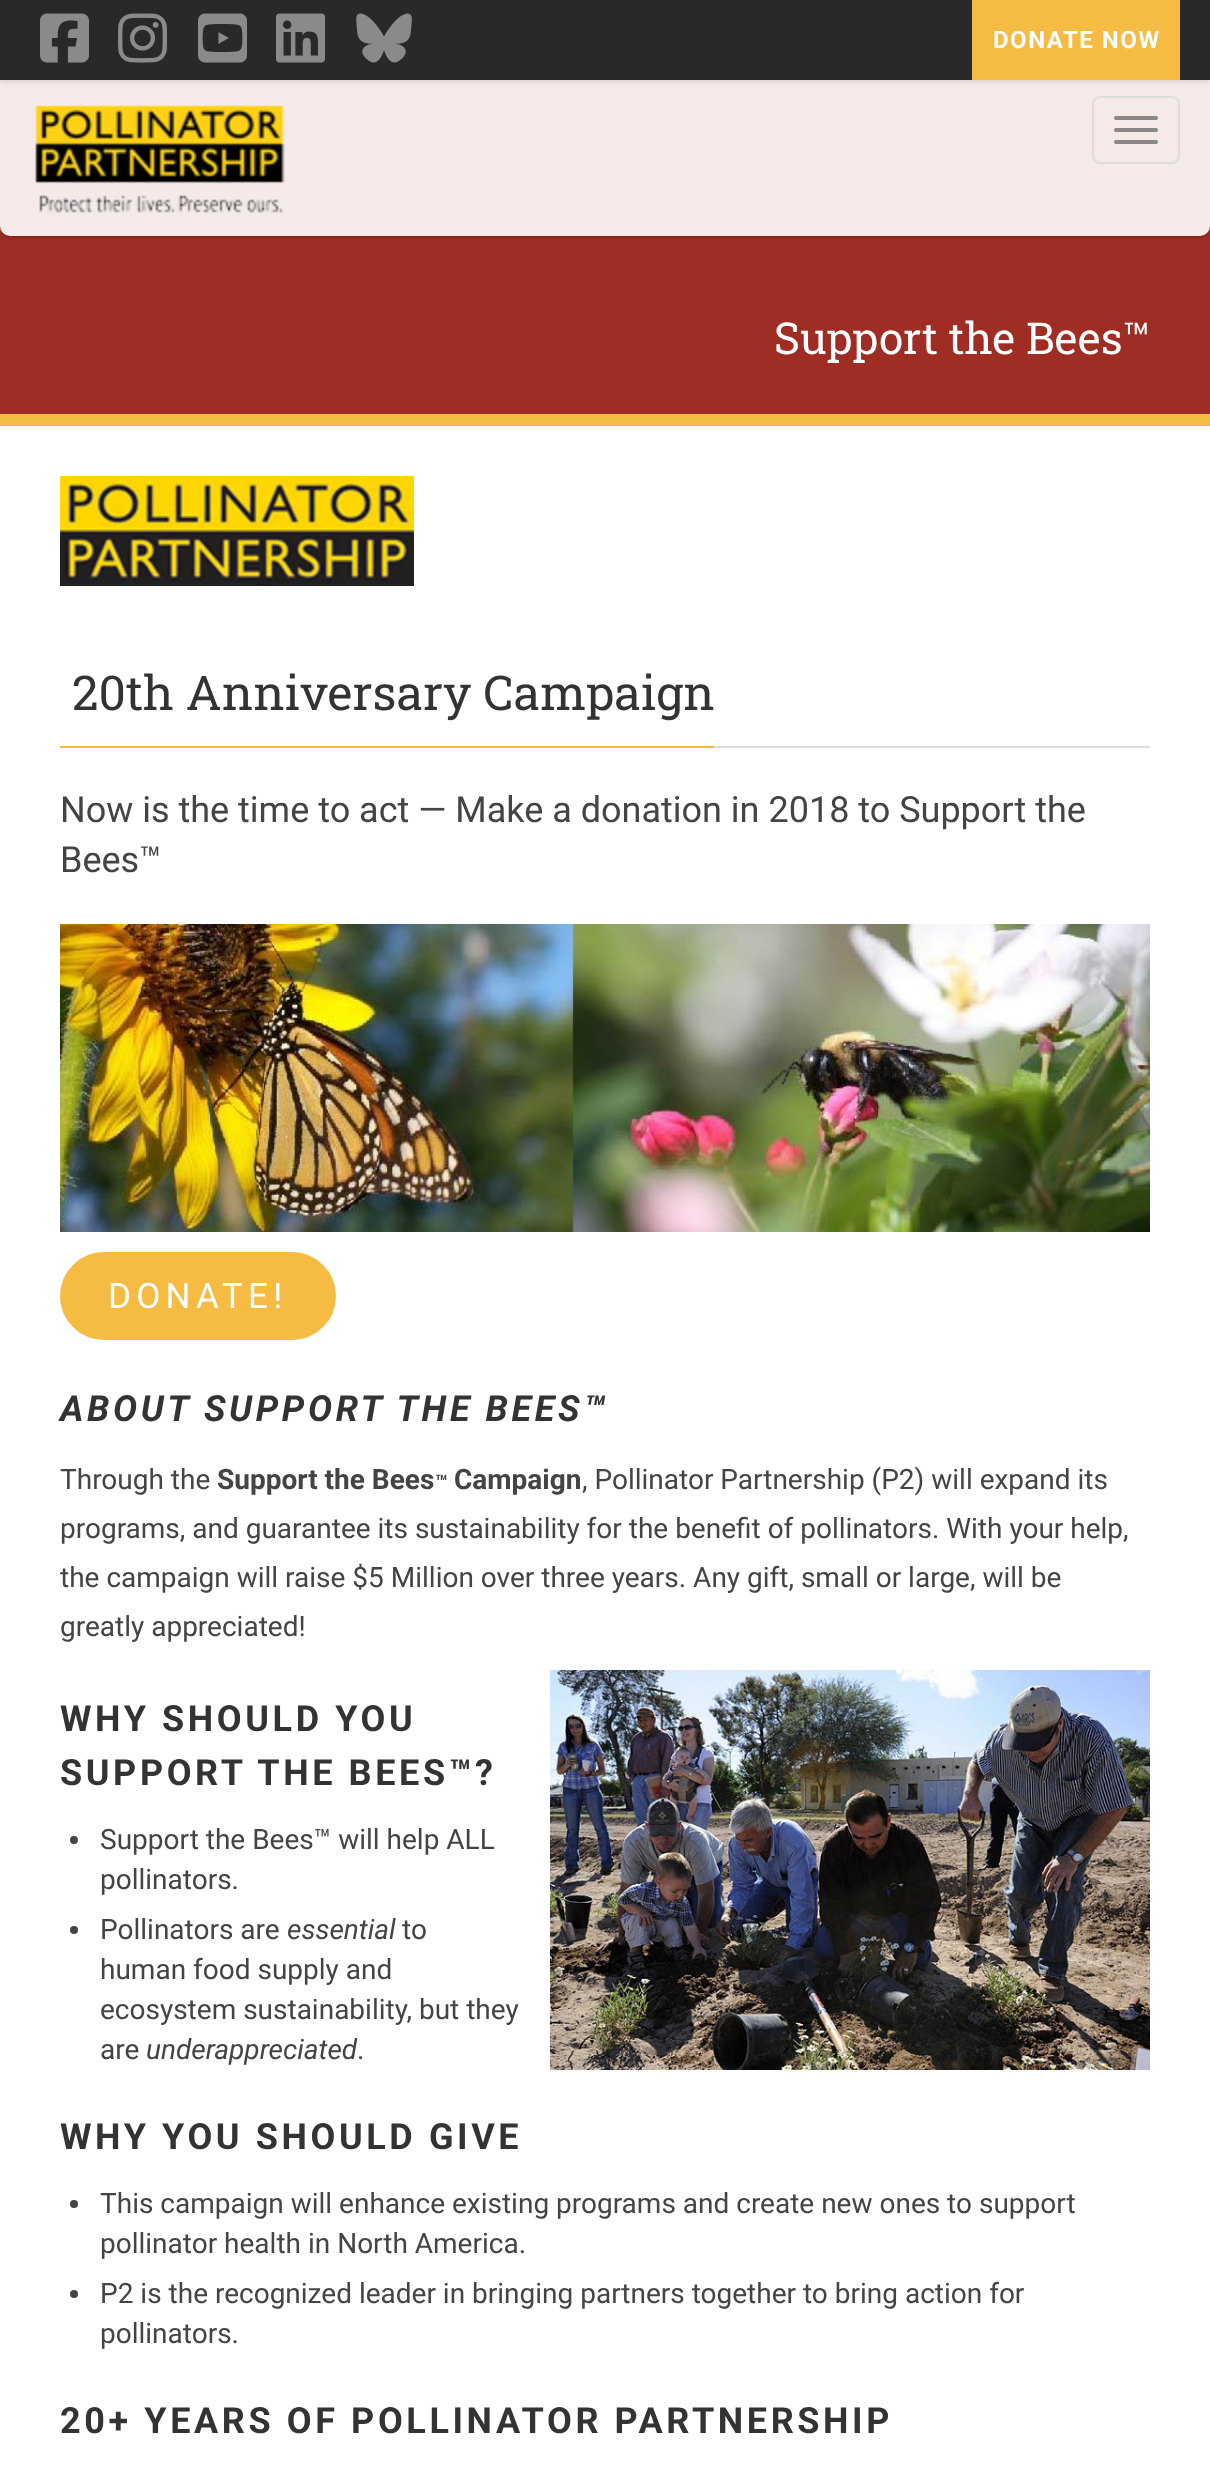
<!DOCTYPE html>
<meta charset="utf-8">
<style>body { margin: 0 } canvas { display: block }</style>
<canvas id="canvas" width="1210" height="2465"></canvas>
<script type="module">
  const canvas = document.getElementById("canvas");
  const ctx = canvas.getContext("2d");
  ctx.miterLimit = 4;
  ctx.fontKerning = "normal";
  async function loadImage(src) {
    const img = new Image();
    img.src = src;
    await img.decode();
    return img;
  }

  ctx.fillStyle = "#ffffff";
  ctx.fillRect(0, 0, 1210, 2465);
  ctx.fillStyle = "#a02d24";
  ctx.fillRect(0, 80, 1210, 334);
  ctx.save();
  ctx.beginPath();
  ctx.moveTo(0, 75);
  ctx.lineTo(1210, 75);
  ctx.lineTo(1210, 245);
  ctx.lineTo(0, 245);
  ctx.closePath();
  ctx.moveTo(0, 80);
  ctx.lineTo(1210, 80);
  ctx.lineTo(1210, 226);
  ctx.bezierCurveTo(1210, 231.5, 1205.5, 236, 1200, 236);
  ctx.lineTo(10, 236);
  ctx.bezierCurveTo(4.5, 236, 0, 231.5, 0, 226);
  ctx.closePath();
  ctx.clip("evenodd");
  ctx.fillStyle = "rgba(0, 0, 0, 0.1)";
  ctx.filter = "blur(2px)";
  ctx.beginPath();
  ctx.roundRect(0, 82, 1210, 156, 10);
  ctx.fill();
  ctx.filter = "none";
  ctx.filter = "blur(2px)";
  ctx.beginPath();
  ctx.roundRect(0, 82, 1210, 156, 10);
  ctx.fill();
  ctx.filter = "none";
  ctx.restore();
  ctx.fillStyle = "rgba(255, 255, 255, 0.9)";
  ctx.beginPath();
  ctx.roundRect(0, 80, 1210, 156, [0, 0, 10, 10]);
  ctx.fill();
  ctx.fillStyle = "rgba(0, 0, 0, 0.1)";
  ctx.filter = "blur(2px)";
  ctx.beginPath();
  ctx.rect(0, 2, 1210, 80);
  ctx.fill();
  ctx.filter = "none";
  ctx.fillStyle = "#292929";
  ctx.fillRect(0, 0, 1210, 80);
  ctx.drawImage(await loadImage("img1.png"), 40, 13, 49, 50);
  ctx.drawImage(await loadImage("img2.png"), 118, 13, 49, 50);
  ctx.drawImage(await loadImage("img3.png"), 198, 13, 49, 50);
  ctx.drawImage(await loadImage("img4.png"), 276, 13, 49, 50);
  ctx.drawImage(await loadImage("img5.png"), 356, 13, 56, 50);
  ctx.fillStyle = "#f6bb42";
  ctx.fillRect(972, 0, 208, 80);
  ctx.letterSpacing = "1.5px";
  ctx.font = "bold 24px Roboto";
  ctx.fillStyle = "#ffffff";
  ctx.fillText("DONATE NOW", 993, 48);
  ctx.drawImage(await loadImage("img6.png"), 35, 105, 250, 108);
  ctx.beginPath();
  ctx.roundRect(1093, 97, 86, 66, 7);
  ctx.strokeStyle = "#dddddd";
  ctx.lineWidth = 2;
  ctx.stroke();
  ctx.fillStyle = "#888888";
  ctx.beginPath();
  ctx.roundRect(1114, 116, 44, 4, 2);
  ctx.fill();
  ctx.beginPath();
  ctx.roundRect(1114, 128, 44, 4, 2);
  ctx.fill();
  ctx.beginPath();
  ctx.roundRect(1114, 140, 44, 4, 2);
  ctx.fill();
  ctx.fillStyle = "#f6bb42";
  ctx.fillRect(0, 414, 1210, 6);
  ctx.letterSpacing = "0px";
  ctx.font = "44px Roboto Slab";
  ctx.fillStyle = "#ffffff";
  ctx.fillText("Support the Bees™", 774, 354);
  ctx.fillStyle = "#f6bb42";
  ctx.fillRect(0, 420, 1210, 6);
  ctx.drawImage(await loadImage("img7.png"), 60, 476, 354, 110);
  ctx.fillStyle = "#dddddd";
  ctx.fillRect(714, 746, 436, 2);
  ctx.fillStyle = "#f6bb42";
  ctx.fillRect(60, 746, 654, 2);
  ctx.font = "48px Roboto Slab";
  ctx.fillStyle = "#333333";
  ctx.fillText("20th Anniversary Campaign", 72, 710);
  ctx.font = "36px Roboto";
  ctx.fillStyle = "#444444";
  ctx.fillText("Now is the time to act — Make a donation in 2018 to Support the", 60, 822);
  ctx.fillText("Bees™", 60, 872);
  ctx.drawImage(await loadImage("img8.png"), 60, 924, 1090, 308);
  ctx.fillStyle = "#f6bb42";
  ctx.beginPath();
  ctx.roundRect(62, 1254, 272, 84, 42);
  ctx.fill();
  ctx.strokeStyle = "#f6bb42";
  ctx.lineWidth = 4;
  ctx.stroke();
  ctx.letterSpacing = "5.25px";
  ctx.font = "35px Roboto";
  ctx.fillStyle = "#ffffff";
  ctx.fillText("DONATE!", 108, 1308);
  ctx.letterSpacing = "3.6px";
  ctx.font = "italic bold 36px Roboto";
  ctx.fillStyle = "#333333";
  ctx.fillText("ABOUT SUPPORT THE BEES™", 60, 1421);
  ctx.letterSpacing = "0px";
  ctx.font = "28px Roboto";
  ctx.fillStyle = "#444444";
  ctx.fillText("Through the", 60, 1489);
  ctx.font = "bold 28px Roboto";
  ctx.fillText("Support the Bees", 217, 1489);
  ctx.font = "bold 20px Roboto";
  ctx.fillText("™", 435, 1489);
  ctx.font = "bold 28px Roboto";
  ctx.fillText("Campaign", 454, 1489);
  ctx.font = "28px Roboto";
  ctx.fillText(", Pollinator Partnership (P2) will expand its", 582, 1489);
  ctx.fillText("programs, and guarantee its sustainability for the benefit of pollinators. With your help,", 60, 1538);
  ctx.fillText("the campaign will raise $5 Million over three years. Any gift, small or large, will be", 60, 1587);
  ctx.fillText("greatly appreciated!", 60, 1636);
  ctx.letterSpacing = "3.6px";
  ctx.font = "bold 36px Roboto";
  ctx.fillStyle = "#333333";
  ctx.fillText("WHY SHOULD YOU", 60, 1731);
  ctx.fillText("SUPPORT THE BEES™?", 60, 1785);
  ctx.drawImage(await loadImage("img9.png"), 550, 1670, 600, 400);
  ctx.fillStyle = "#444444";
  ctx.beginPath();
  ctx.arc(74, 1840, 4, 0, Math.PI * 2);
  ctx.fill();
  ctx.letterSpacing = "0px";
  ctx.font = "28px Roboto";
  ctx.fillText("Support the Bees™ will help ALL", 100, 1849);
  ctx.fillText("pollinators.", 100, 1889);
  ctx.beginPath();
  ctx.arc(74, 1930, 4, 0, Math.PI * 2);
  ctx.fill();
  ctx.fillText("Pollinators are", 100, 1939);
  ctx.font = "italic 28px Roboto";
  ctx.fillText("essential", 287, 1939);
  ctx.font = "28px Roboto";
  ctx.fillText("to", 402, 1939);
  ctx.fillText("human food supply and", 100, 1979);
  ctx.fillText("ecosystem sustainability, but they", 100, 2019);
  ctx.fillText("are", 100, 2059);
  ctx.font = "italic 28px Roboto";
  ctx.fillText("underappreciated", 146, 2059);
  ctx.font = "28px Roboto";
  ctx.fillText(".", 357, 2059);
  ctx.letterSpacing = "3.6px";
  ctx.font = "bold 36px Roboto";
  ctx.fillStyle = "#333333";
  ctx.fillText("WHY YOU SHOULD GIVE", 60, 2149);
  ctx.fillStyle = "#444444";
  ctx.beginPath();
  ctx.arc(74, 2204, 4, 0, Math.PI * 2);
  ctx.fill();
  ctx.letterSpacing = "0px";
  ctx.font = "28px Roboto";
  ctx.fillText("This campaign will enhance existing programs and create new ones to support", 100, 2213);
  ctx.fillText("pollinator health in North America.", 100, 2253);
  ctx.beginPath();
  ctx.arc(74, 2294, 4, 0, Math.PI * 2);
  ctx.fill();
  ctx.fillText("P2 is the recognized leader in bringing partners together to bring action for", 100, 2303);
  ctx.fillText("pollinators.", 100, 2343);
  ctx.letterSpacing = "3.6px";
  ctx.font = "bold 36px Roboto";
  ctx.fillStyle = "#333333";
  ctx.fillText("20+ YEARS OF POLLINATOR PARTNERSHIP", 60, 2433);
</script>
